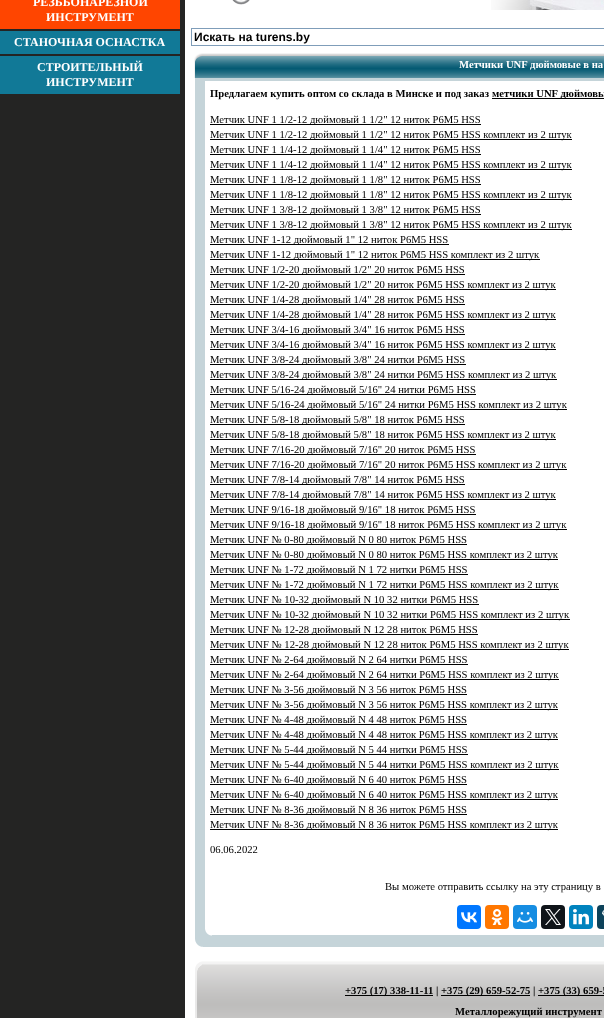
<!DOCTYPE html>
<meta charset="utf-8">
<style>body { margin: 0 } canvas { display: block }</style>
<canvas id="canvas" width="604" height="1018"></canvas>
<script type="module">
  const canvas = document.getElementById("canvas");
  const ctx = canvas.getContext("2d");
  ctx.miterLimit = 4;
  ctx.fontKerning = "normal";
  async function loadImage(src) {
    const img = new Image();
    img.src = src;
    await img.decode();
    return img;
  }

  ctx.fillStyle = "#242423";
  ctx.fillRect(0, 0, 604, 1018);
  ctx.fillStyle = "#ff4500";
  ctx.fillRect(0, 0, 180, 29);
  ctx.font = "bold 12px Liberation Serif";
  ctx.fillStyle = "#ffffff";
  ctx.fillText("РЕЗЬБОНАРЕЗНОЙ", 33, 6);
  ctx.fillText("ИНСТРУМЕНТ", 46, 21);
  ctx.fillStyle = "#117997";
  ctx.fillRect(0, 31, 180, 23);
  ctx.fillStyle = "#ffffff";
  ctx.fillText("СТАНОЧНАЯ ОСНАСТКА", 14, 46);
  ctx.fillStyle = "#117997";
  ctx.fillRect(0, 56, 180, 38);
  ctx.fillStyle = "#ffffff";
  ctx.fillText("СТРОИТЕЛЬНЫЙ", 37, 71);
  ctx.fillText("ИНСТРУМЕНТ", 46, 86);
  ctx.fillRect(185, 0, 419, 961);
  ctx.drawImage(await loadImage("img1.png"), 232, 0, 18, 5);
  ctx.drawImage(await loadImage("img2.png"), 491, 0, 113, 10);
  ctx.strokeStyle = "#7f9db9";
  ctx.strokeRect(191.5, 28.5, 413, 17);
  ctx.font = "bold 12px Liberation Sans";
  ctx.fillStyle = "#000000";
  ctx.fillText("Искать на turens.by", 194, 41);
  ctx.drawImage(await loadImage("img3.png"), 202, 53, 402, 25);
  ctx.drawImage(await loadImage("img4.png"), 185, 53, 17, 25);
  ctx.font = "bold 10.65px Liberation Serif";
  ctx.fillStyle = "#ffffff";
  ctx.fillText("Метчики UNF дюймовые в на", 459, 68);
  ctx.fillStyle = "#c5d4d9";
  ctx.fillRect(195, 78, 409, 3);
  ctx.fillRect(195, 81, 10, 848);
  ctx.fillStyle = "#000000";
  ctx.fillText("Предлагаем купить оптом со склада в Минске и под заказ", 210, 97);
  ctx.fillRect(492, 98, 112, 1);
  ctx.fillText("метчики UNF дюймовы", 492, 97);
  ctx.fillRect(210, 124, 271, 1);
  ctx.font = "10.65px Liberation Serif";
  ctx.fillText("Метчик UNF 1 1/2-12 дюймовый 1 1/2\" 12 ниток Р6М5 HSS", 210, 123);
  ctx.fillRect(210, 139, 362, 1);
  ctx.fillText("Метчик UNF 1 1/2-12 дюймовый 1 1/2\" 12 ниток Р6М5 HSS комплект из 2 штук", 210, 138);
  ctx.fillRect(210, 154, 271, 1);
  ctx.fillText("Метчик UNF 1 1/4-12 дюймовый 1 1/4\" 12 ниток Р6М5 HSS", 210, 153);
  ctx.fillRect(210, 169, 362, 1);
  ctx.fillText("Метчик UNF 1 1/4-12 дюймовый 1 1/4\" 12 ниток Р6М5 HSS комплект из 2 штук", 210, 168);
  ctx.fillRect(210, 184, 271, 1);
  ctx.fillText("Метчик UNF 1 1/8-12 дюймовый 1 1/8\" 12 ниток Р6М5 HSS", 210, 183);
  ctx.fillRect(210, 199, 362, 1);
  ctx.fillText("Метчик UNF 1 1/8-12 дюймовый 1 1/8\" 12 ниток Р6М5 HSS комплект из 2 штук", 210, 198);
  ctx.fillRect(210, 214, 271, 1);
  ctx.fillText("Метчик UNF 1 3/8-12 дюймовый 1 3/8\" 12 ниток Р6М5 HSS", 210, 213);
  ctx.fillRect(210, 229, 362, 1);
  ctx.fillText("Метчик UNF 1 3/8-12 дюймовый 1 3/8\" 12 ниток Р6М5 HSS комплект из 2 штук", 210, 228);
  ctx.fillRect(210, 244, 239, 1);
  ctx.fillText("Метчик UNF 1-12 дюймовый 1\" 12 ниток Р6М5 HSS", 210, 243);
  ctx.fillRect(210, 259, 330, 1);
  ctx.fillText("Метчик UNF 1-12 дюймовый 1\" 12 ниток Р6М5 HSS комплект из 2 штук", 210, 258);
  ctx.fillRect(210, 274, 255, 1);
  ctx.fillText("Метчик UNF 1/2-20 дюймовый 1/2\" 20 ниток Р6М5 HSS", 210, 273);
  ctx.fillRect(210, 289, 346, 1);
  ctx.fillText("Метчик UNF 1/2-20 дюймовый 1/2\" 20 ниток Р6М5 HSS комплект из 2 штук", 210, 288);
  ctx.fillRect(210, 304, 255, 1);
  ctx.fillText("Метчик UNF 1/4-28 дюймовый 1/4\" 28 ниток Р6М5 HSS", 210, 303);
  ctx.fillRect(210, 319, 346, 1);
  ctx.fillText("Метчик UNF 1/4-28 дюймовый 1/4\" 28 ниток Р6М5 HSS комплект из 2 штук", 210, 318);
  ctx.fillRect(210, 334, 255, 1);
  ctx.fillText("Метчик UNF 3/4-16 дюймовый 3/4\" 16 ниток Р6М5 HSS", 210, 333);
  ctx.fillRect(210, 349, 346, 1);
  ctx.fillText("Метчик UNF 3/4-16 дюймовый 3/4\" 16 ниток Р6М5 HSS комплект из 2 штук", 210, 348);
  ctx.fillRect(210, 364, 256, 1);
  ctx.fillText("Метчик UNF 3/8-24 дюймовый 3/8\" 24 нитки Р6М5 HSS", 210, 363);
  ctx.fillRect(210, 379, 347, 1);
  ctx.fillText("Метчик UNF 3/8-24 дюймовый 3/8\" 24 нитки Р6М5 HSS комплект из 2 штук", 210, 378);
  ctx.fillRect(210, 394, 266, 1);
  ctx.fillText("Метчик UNF 5/16-24 дюймовый 5/16\" 24 нитки Р6М5 HSS", 210, 393);
  ctx.fillRect(210, 409, 357, 1);
  ctx.fillText("Метчик UNF 5/16-24 дюймовый 5/16\" 24 нитки Р6М5 HSS комплект из 2 штук", 210, 408);
  ctx.fillRect(210, 424, 255, 1);
  ctx.fillText("Метчик UNF 5/8-18 дюймовый 5/8\" 18 ниток Р6М5 HSS", 210, 423);
  ctx.fillRect(210, 439, 346, 1);
  ctx.fillText("Метчик UNF 5/8-18 дюймовый 5/8\" 18 ниток Р6М5 HSS комплект из 2 штук", 210, 438);
  ctx.fillRect(210, 454, 266, 1);
  ctx.fillText("Метчик UNF 7/16-20 дюймовый 7/16\" 20 ниток Р6М5 HSS", 210, 453);
  ctx.fillRect(210, 469, 357, 1);
  ctx.fillText("Метчик UNF 7/16-20 дюймовый 7/16\" 20 ниток Р6М5 HSS комплект из 2 штук", 210, 468);
  ctx.fillRect(210, 484, 255, 1);
  ctx.fillText("Метчик UNF 7/8-14 дюймовый 7/8\" 14 ниток Р6М5 HSS", 210, 483);
  ctx.fillRect(210, 499, 346, 1);
  ctx.fillText("Метчик UNF 7/8-14 дюймовый 7/8\" 14 ниток Р6М5 HSS комплект из 2 штук", 210, 498);
  ctx.fillRect(210, 514, 266, 1);
  ctx.fillText("Метчик UNF 9/16-18 дюймовый 9/16\" 18 ниток Р6М5 HSS", 210, 513);
  ctx.fillRect(210, 529, 357, 1);
  ctx.fillText("Метчик UNF 9/16-18 дюймовый 9/16\" 18 ниток Р6М5 HSS комплект из 2 штук", 210, 528);
  ctx.fillRect(210, 544, 257, 1);
  ctx.fillText("Метчик UNF № 0-80 дюймовый N 0 80 ниток Р6М5 HSS", 210, 543);
  ctx.fillRect(210, 559, 348, 1);
  ctx.fillText("Метчик UNF № 0-80 дюймовый N 0 80 ниток Р6М5 HSS комплект из 2 штук", 210, 558);
  ctx.fillRect(210, 574, 258, 1);
  ctx.fillText("Метчик UNF № 1-72 дюймовый N 1 72 нитки Р6М5 HSS", 210, 573);
  ctx.fillRect(210, 589, 349, 1);
  ctx.fillText("Метчик UNF № 1-72 дюймовый N 1 72 нитки Р6М5 HSS комплект из 2 штук", 210, 588);
  ctx.fillRect(210, 604, 269, 1);
  ctx.fillText("Метчик UNF № 10-32 дюймовый N 10 32 нитки Р6М5 HSS", 210, 603);
  ctx.fillRect(210, 619, 360, 1);
  ctx.fillText("Метчик UNF № 10-32 дюймовый N 10 32 нитки Р6М5 HSS комплект из 2 штук", 210, 618);
  ctx.fillRect(210, 634, 268, 1);
  ctx.fillText("Метчик UNF № 12-28 дюймовый N 12 28 ниток Р6М5 HSS", 210, 633);
  ctx.fillRect(210, 649, 359, 1);
  ctx.fillText("Метчик UNF № 12-28 дюймовый N 12 28 ниток Р6М5 HSS комплект из 2 штук", 210, 648);
  ctx.fillRect(210, 664, 258, 1);
  ctx.fillText("Метчик UNF № 2-64 дюймовый N 2 64 нитки Р6М5 HSS", 210, 663);
  ctx.fillRect(210, 679, 349, 1);
  ctx.fillText("Метчик UNF № 2-64 дюймовый N 2 64 нитки Р6М5 HSS комплект из 2 штук", 210, 678);
  ctx.fillRect(210, 694, 257, 1);
  ctx.fillText("Метчик UNF № 3-56 дюймовый N 3 56 ниток Р6М5 HSS", 210, 693);
  ctx.fillRect(210, 709, 348, 1);
  ctx.fillText("Метчик UNF № 3-56 дюймовый N 3 56 ниток Р6М5 HSS комплект из 2 штук", 210, 708);
  ctx.fillRect(210, 724, 257, 1);
  ctx.fillText("Метчик UNF № 4-48 дюймовый N 4 48 ниток Р6М5 HSS", 210, 723);
  ctx.fillRect(210, 739, 348, 1);
  ctx.fillText("Метчик UNF № 4-48 дюймовый N 4 48 ниток Р6М5 HSS комплект из 2 штук", 210, 738);
  ctx.fillRect(210, 754, 258, 1);
  ctx.fillText("Метчик UNF № 5-44 дюймовый N 5 44 нитки Р6М5 HSS", 210, 753);
  ctx.fillRect(210, 769, 349, 1);
  ctx.fillText("Метчик UNF № 5-44 дюймовый N 5 44 нитки Р6М5 HSS комплект из 2 штук", 210, 768);
  ctx.fillRect(210, 784, 257, 1);
  ctx.fillText("Метчик UNF № 6-40 дюймовый N 6 40 ниток Р6М5 HSS", 210, 783);
  ctx.fillRect(210, 799, 348, 1);
  ctx.fillText("Метчик UNF № 6-40 дюймовый N 6 40 ниток Р6М5 HSS комплект из 2 штук", 210, 798);
  ctx.fillRect(210, 814, 257, 1);
  ctx.fillText("Метчик UNF № 8-36 дюймовый N 8 36 ниток Р6М5 HSS", 210, 813);
  ctx.fillRect(210, 829, 348, 1);
  ctx.fillText("Метчик UNF № 8-36 дюймовый N 8 36 ниток Р6М5 HSS комплект из 2 штук", 210, 828);
  ctx.fillText("06.06.2022", 210, 853);
  ctx.fillText("Вы можете отправить ссылку на эту страницу в", 385, 890);
  ctx.fillStyle = "#0077ff";
  ctx.beginPath();
  ctx.roundRect(457, 905, 24, 24, 4);
  ctx.fill();
  ctx.drawImage(await loadImage("img5.png"), 461, 912, 16, 11);
  ctx.fillStyle = "#ff7700";
  ctx.beginPath();
  ctx.roundRect(485, 905, 24, 24, 4);
  ctx.fill();
  ctx.drawImage(await loadImage("img6.png"), 491, 909, 12, 16);
  ctx.fillStyle = "#168de2";
  ctx.beginPath();
  ctx.roundRect(513, 905, 24, 24, 4);
  ctx.fill();
  ctx.drawImage(await loadImage("img7.png"), 517, 912, 16, 11);
  ctx.fillStyle = "#0f1419";
  ctx.beginPath();
  ctx.roundRect(541, 905, 24, 24, 4);
  ctx.fill();
  ctx.drawImage(await loadImage("img8.png"), 545, 909, 16, 16);
  ctx.fillStyle = "#0083be";
  ctx.beginPath();
  ctx.roundRect(569, 905, 24, 24, 4);
  ctx.fill();
  ctx.drawImage(await loadImage("img9.png"), 573, 909, 16, 16);
  ctx.fillStyle = "#0d425a";
  ctx.beginPath();
  ctx.roundRect(597, 905, 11, 24, 4);
  ctx.fill();
  ctx.drawImage(await loadImage("img10.png"), 602, 910, 2, 6);
  ctx.fillStyle = "#c5d4d9";
  ctx.fillRect(212, 935, 392, 12);
  ctx.drawImage(await loadImage("img11.png"), 185, 929, 27, 18);
  ctx.drawImage(await loadImage("img12.png"), 202, 961, 402, 57);
  ctx.drawImage(await loadImage("img13.png"), 185, 961, 17, 57);
  ctx.fillStyle = "#000000";
  ctx.fillRect(345, 995, 88, 1);
  ctx.font = "bold 10.65px Liberation Serif";
  ctx.fillText("+375 (17) 338-11-11 |", 345, 994);
  ctx.fillRect(441, 995, 89, 1);
  ctx.fillText("+375 (29) 659-52-75 |", 441, 994);
  ctx.fillRect(538, 995, 66, 1);
  ctx.fillText("+375 (33) 659-5", 538, 994);
  ctx.fillText("Металлорежущий инструмент", 455, 1015);
</script>
